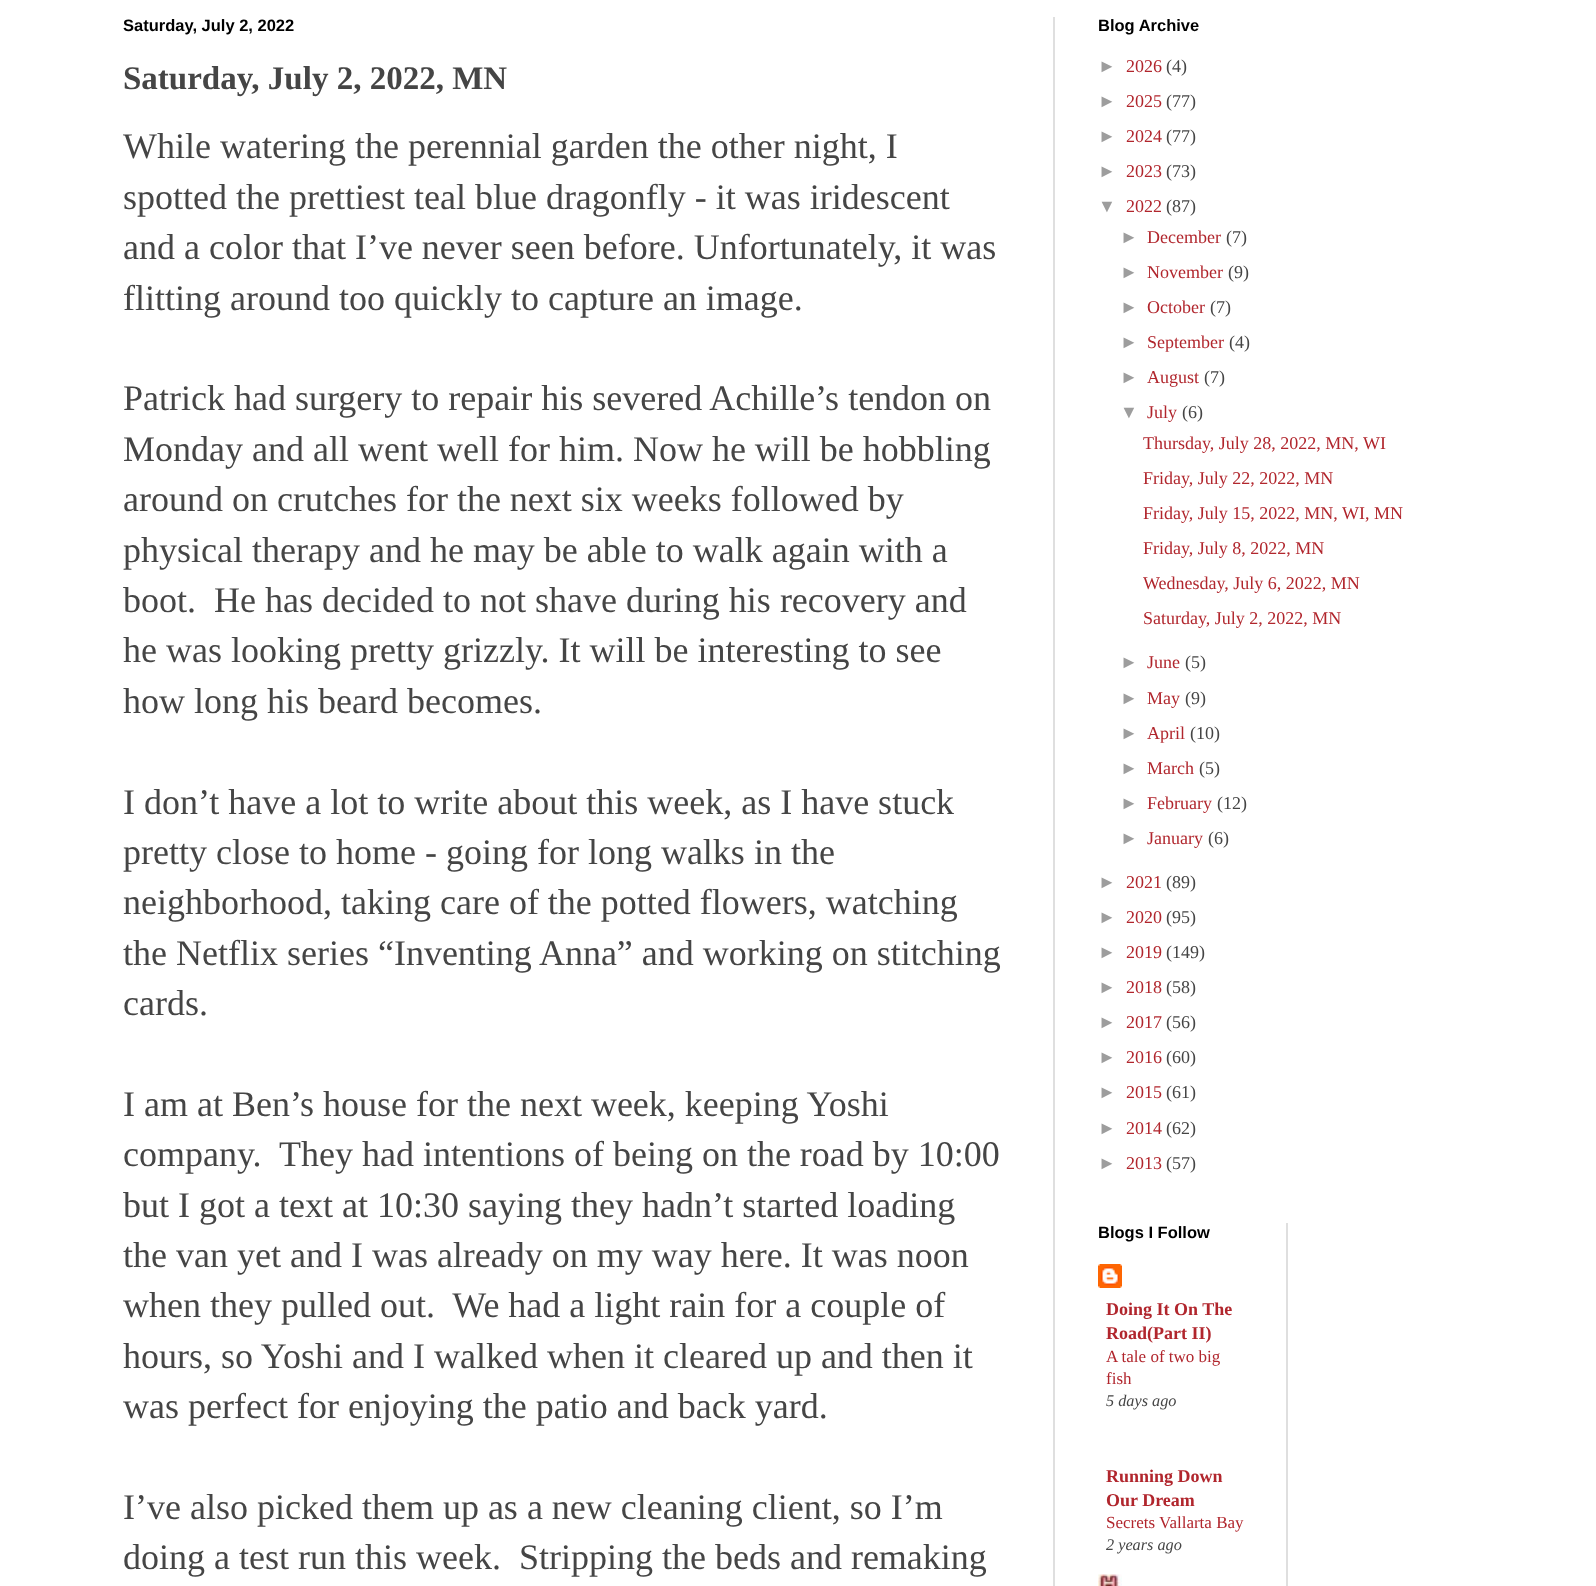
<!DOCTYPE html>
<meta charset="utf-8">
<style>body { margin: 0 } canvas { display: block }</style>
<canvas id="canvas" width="1596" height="1586"></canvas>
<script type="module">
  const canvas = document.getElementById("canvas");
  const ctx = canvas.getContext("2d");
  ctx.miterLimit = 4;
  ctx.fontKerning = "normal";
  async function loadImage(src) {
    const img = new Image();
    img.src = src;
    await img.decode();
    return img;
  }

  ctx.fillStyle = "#ffffff";
  ctx.fillRect(0, 0, 1596, 1586);
  ctx.fillStyle = "#dfdfdf";
  ctx.fillRect(1053, 17, 2, 1569);
  ctx.font = "bold 16.5px Liberation Sans";
  ctx.fillStyle = "#000000";
  ctx.fillText("Saturday, July 2, 2022", 123, 31);
  ctx.font = "bold 33px Liberation Serif";
  ctx.fillStyle = "#454545";
  ctx.fillText("Saturday, July 2, 2022, MN", 123, 89);
  ctx.font = "36px Liberation Serif";
  ctx.fillText("While watering the perennial garden the other night, I", 123, 158);
  ctx.fillText("spotted the prettiest teal blue dragonfly - it was iridescent", 123, 209);
  ctx.fillText("and a color that I’ve never seen before. Unfortunately, it was", 123, 259);
  ctx.fillText("flitting around too quickly to capture an image.", 123, 310);
  ctx.fillText("Patrick had surgery to repair his severed Achille’s tendon on", 123, 410);
  ctx.fillText("Monday and all went well for him. Now he will be hobbling", 123, 461);
  ctx.fillText("around on crutches for the next six weeks followed by", 123, 511);
  ctx.fillText("physical therapy and he may be able to walk again with a", 123, 562);
  ctx.fillText("boot.  He has decided to not shave during his recovery and", 123, 612);
  ctx.fillText("he was looking pretty grizzly. It will be interesting to see", 123, 662);
  ctx.fillText("how long his beard becomes.", 123, 713);
  ctx.fillText("I don’t have a lot to write about this week, as I have stuck", 123, 814);
  ctx.fillText("pretty close to home - going for long walks in the", 123, 864);
  ctx.fillText("neighborhood, taking care of the potted flowers, watching", 123, 914);
  ctx.fillText("the Netflix series “Inventing Anna” and working on stitching", 123, 965);
  ctx.fillText("cards.", 123, 1015);
  ctx.fillText("I am at Ben’s house for the next week, keeping Yoshi", 123, 1116);
  ctx.fillText("company.  They had intentions of being on the road by 10:00", 123, 1166);
  ctx.fillText("but I got a text at 10:30 saying they hadn’t started loading", 123, 1217);
  ctx.fillText("the van yet and I was already on my way here. It was noon", 123, 1267);
  ctx.fillText("when they pulled out.  We had a light rain for a couple of", 123, 1317);
  ctx.fillText("hours, so Yoshi and I walked when it cleared up and then it", 123, 1368);
  ctx.fillText("was perfect for enjoying the patio and back yard.", 123, 1418);
  ctx.fillText("I’ve also picked them up as a new cleaning client, so I’m", 123, 1519);
  ctx.fillText("doing a test run this week.  Stripping the beds and remaking", 123, 1569);
  ctx.font = "bold 16.5px Liberation Sans";
  ctx.fillStyle = "#000000";
  ctx.fillText("Blog Archive", 1098, 31);
  ctx.font = "18px Liberation Sans";
  ctx.fillStyle = "#9d9d9d";
  ctx.fillText("►", 1098, 72);
  ctx.font = "18px Liberation Serif";
  ctx.fillStyle = "#b1262d";
  ctx.fillText("2026", 1126, 72);
  ctx.fillStyle = "#454545";
  ctx.fillText("(4)", 1166, 72);
  ctx.font = "18px Liberation Sans";
  ctx.fillStyle = "#9d9d9d";
  ctx.fillText("►", 1098, 107);
  ctx.font = "18px Liberation Serif";
  ctx.fillStyle = "#b1262d";
  ctx.fillText("2025", 1126, 107);
  ctx.fillStyle = "#454545";
  ctx.fillText("(77)", 1166, 107);
  ctx.font = "18px Liberation Sans";
  ctx.fillStyle = "#9d9d9d";
  ctx.fillText("►", 1098, 142);
  ctx.font = "18px Liberation Serif";
  ctx.fillStyle = "#b1262d";
  ctx.fillText("2024", 1126, 142);
  ctx.fillStyle = "#454545";
  ctx.fillText("(77)", 1166, 142);
  ctx.font = "18px Liberation Sans";
  ctx.fillStyle = "#9d9d9d";
  ctx.fillText("►", 1098, 177);
  ctx.font = "18px Liberation Serif";
  ctx.fillStyle = "#b1262d";
  ctx.fillText("2023", 1126, 177);
  ctx.fillStyle = "#454545";
  ctx.fillText("(73)", 1166, 177);
  ctx.font = "18px Liberation Sans";
  ctx.fillStyle = "#9d9d9d";
  ctx.fillText("▼", 1098, 212);
  ctx.font = "18px Liberation Serif";
  ctx.fillStyle = "#b1262d";
  ctx.fillText("2022", 1126, 212);
  ctx.fillStyle = "#454545";
  ctx.fillText("(87)", 1166, 212);
  ctx.font = "18px Liberation Sans";
  ctx.fillStyle = "#9d9d9d";
  ctx.fillText("►", 1120, 243);
  ctx.font = "18px Liberation Serif";
  ctx.fillStyle = "#b1262d";
  ctx.fillText("December", 1147, 243);
  ctx.fillStyle = "#454545";
  ctx.fillText("(7)", 1226, 243);
  ctx.font = "18px Liberation Sans";
  ctx.fillStyle = "#9d9d9d";
  ctx.fillText("►", 1120, 278);
  ctx.font = "18px Liberation Serif";
  ctx.fillStyle = "#b1262d";
  ctx.fillText("November", 1147, 278);
  ctx.fillStyle = "#454545";
  ctx.fillText("(9)", 1228, 278);
  ctx.font = "18px Liberation Sans";
  ctx.fillStyle = "#9d9d9d";
  ctx.fillText("►", 1120, 313);
  ctx.font = "18px Liberation Serif";
  ctx.fillStyle = "#b1262d";
  ctx.fillText("October", 1147, 313);
  ctx.fillStyle = "#454545";
  ctx.fillText("(7)", 1210, 313);
  ctx.font = "18px Liberation Sans";
  ctx.fillStyle = "#9d9d9d";
  ctx.fillText("►", 1120, 348);
  ctx.font = "18px Liberation Serif";
  ctx.fillStyle = "#b1262d";
  ctx.fillText("September", 1147, 348);
  ctx.fillStyle = "#454545";
  ctx.fillText("(4)", 1229, 348);
  ctx.font = "18px Liberation Sans";
  ctx.fillStyle = "#9d9d9d";
  ctx.fillText("►", 1120, 383);
  ctx.font = "18px Liberation Serif";
  ctx.fillStyle = "#b1262d";
  ctx.fillText("August", 1147, 383);
  ctx.fillStyle = "#454545";
  ctx.fillText("(7)", 1204, 383);
  ctx.font = "18px Liberation Sans";
  ctx.fillStyle = "#9d9d9d";
  ctx.fillText("▼", 1120, 418);
  ctx.font = "18px Liberation Serif";
  ctx.fillStyle = "#b1262d";
  ctx.fillText("July", 1147, 418);
  ctx.fillStyle = "#454545";
  ctx.fillText("(6)", 1182, 418);
  ctx.fillStyle = "#b1262d";
  ctx.fillText("Thursday, July 28, 2022, MN, WI", 1143, 449);
  ctx.fillText("Friday, July 22, 2022, MN", 1143, 484);
  ctx.fillText("Friday, July 15, 2022, MN, WI, MN", 1143, 519);
  ctx.fillText("Friday, July 8, 2022, MN", 1143, 554);
  ctx.fillText("Wednesday, July 6, 2022, MN", 1143, 589);
  ctx.fillText("Saturday, July 2, 2022, MN", 1143, 624);
  ctx.font = "18px Liberation Sans";
  ctx.fillStyle = "#9d9d9d";
  ctx.fillText("►", 1120, 668);
  ctx.font = "18px Liberation Serif";
  ctx.fillStyle = "#b1262d";
  ctx.fillText("June", 1147, 668);
  ctx.fillStyle = "#454545";
  ctx.fillText("(5)", 1185, 668);
  ctx.font = "18px Liberation Sans";
  ctx.fillStyle = "#9d9d9d";
  ctx.fillText("►", 1120, 704);
  ctx.font = "18px Liberation Serif";
  ctx.fillStyle = "#b1262d";
  ctx.fillText("May", 1147, 704);
  ctx.fillStyle = "#454545";
  ctx.fillText("(9)", 1185, 704);
  ctx.font = "18px Liberation Sans";
  ctx.fillStyle = "#9d9d9d";
  ctx.fillText("►", 1120, 739);
  ctx.font = "18px Liberation Serif";
  ctx.fillStyle = "#b1262d";
  ctx.fillText("April", 1147, 739);
  ctx.fillStyle = "#454545";
  ctx.fillText("(10)", 1190, 739);
  ctx.font = "18px Liberation Sans";
  ctx.fillStyle = "#9d9d9d";
  ctx.fillText("►", 1120, 774);
  ctx.font = "18px Liberation Serif";
  ctx.fillStyle = "#b1262d";
  ctx.fillText("March", 1147, 774);
  ctx.fillStyle = "#454545";
  ctx.fillText("(5)", 1199, 774);
  ctx.font = "18px Liberation Sans";
  ctx.fillStyle = "#9d9d9d";
  ctx.fillText("►", 1120, 809);
  ctx.font = "18px Liberation Serif";
  ctx.fillStyle = "#b1262d";
  ctx.fillText("February", 1147, 809);
  ctx.fillStyle = "#454545";
  ctx.fillText("(12)", 1217, 809);
  ctx.font = "18px Liberation Sans";
  ctx.fillStyle = "#9d9d9d";
  ctx.fillText("►", 1120, 844);
  ctx.font = "18px Liberation Serif";
  ctx.fillStyle = "#b1262d";
  ctx.fillText("January", 1147, 844);
  ctx.fillStyle = "#454545";
  ctx.fillText("(6)", 1208, 844);
  ctx.font = "18px Liberation Sans";
  ctx.fillStyle = "#9d9d9d";
  ctx.fillText("►", 1098, 888);
  ctx.font = "18px Liberation Serif";
  ctx.fillStyle = "#b1262d";
  ctx.fillText("2021", 1126, 888);
  ctx.fillStyle = "#454545";
  ctx.fillText("(89)", 1166, 888);
  ctx.font = "18px Liberation Sans";
  ctx.fillStyle = "#9d9d9d";
  ctx.fillText("►", 1098, 923);
  ctx.font = "18px Liberation Serif";
  ctx.fillStyle = "#b1262d";
  ctx.fillText("2020", 1126, 923);
  ctx.fillStyle = "#454545";
  ctx.fillText("(95)", 1166, 923);
  ctx.font = "18px Liberation Sans";
  ctx.fillStyle = "#9d9d9d";
  ctx.fillText("►", 1098, 958);
  ctx.font = "18px Liberation Serif";
  ctx.fillStyle = "#b1262d";
  ctx.fillText("2019", 1126, 958);
  ctx.fillStyle = "#454545";
  ctx.fillText("(149)", 1166, 958);
  ctx.font = "18px Liberation Sans";
  ctx.fillStyle = "#9d9d9d";
  ctx.fillText("►", 1098, 993);
  ctx.font = "18px Liberation Serif";
  ctx.fillStyle = "#b1262d";
  ctx.fillText("2018", 1126, 993);
  ctx.fillStyle = "#454545";
  ctx.fillText("(58)", 1166, 993);
  ctx.font = "18px Liberation Sans";
  ctx.fillStyle = "#9d9d9d";
  ctx.fillText("►", 1098, 1028);
  ctx.font = "18px Liberation Serif";
  ctx.fillStyle = "#b1262d";
  ctx.fillText("2017", 1126, 1028);
  ctx.fillStyle = "#454545";
  ctx.fillText("(56)", 1166, 1028);
  ctx.font = "18px Liberation Sans";
  ctx.fillStyle = "#9d9d9d";
  ctx.fillText("►", 1098, 1063);
  ctx.font = "18px Liberation Serif";
  ctx.fillStyle = "#b1262d";
  ctx.fillText("2016", 1126, 1063);
  ctx.fillStyle = "#454545";
  ctx.fillText("(60)", 1166, 1063);
  ctx.font = "18px Liberation Sans";
  ctx.fillStyle = "#9d9d9d";
  ctx.fillText("►", 1098, 1098);
  ctx.font = "18px Liberation Serif";
  ctx.fillStyle = "#b1262d";
  ctx.fillText("2015", 1126, 1098);
  ctx.fillStyle = "#454545";
  ctx.fillText("(61)", 1166, 1098);
  ctx.font = "18px Liberation Sans";
  ctx.fillStyle = "#9d9d9d";
  ctx.fillText("►", 1098, 1134);
  ctx.font = "18px Liberation Serif";
  ctx.fillStyle = "#b1262d";
  ctx.fillText("2014", 1126, 1134);
  ctx.fillStyle = "#454545";
  ctx.fillText("(62)", 1166, 1134);
  ctx.font = "18px Liberation Sans";
  ctx.fillStyle = "#9d9d9d";
  ctx.fillText("►", 1098, 1169);
  ctx.font = "18px Liberation Serif";
  ctx.fillStyle = "#b1262d";
  ctx.fillText("2013", 1126, 1169);
  ctx.fillStyle = "#454545";
  ctx.fillText("(57)", 1166, 1169);
  ctx.font = "bold 16.5px Liberation Sans";
  ctx.fillStyle = "#000000";
  ctx.fillText("Blogs I Follow", 1098, 1238);
  ctx.drawImage(await loadImage("img1.png"), 1098, 1264, 24, 24);
  ctx.font = "bold 18px Liberation Serif";
  ctx.fillStyle = "#b1262d";
  ctx.fillText("Doing It On The", 1106, 1315);
  ctx.fillText("Road(Part II)", 1106, 1339);
  ctx.font = "17px Liberation Serif";
  ctx.fillText("A tale of two big", 1106, 1362);
  ctx.fillText("fish", 1106, 1384);
  ctx.font = "italic 16.25px Liberation Serif";
  ctx.fillStyle = "#454545";
  ctx.fillText("5 days ago", 1106, 1406);
  ctx.font = "bold 18px Liberation Serif";
  ctx.fillStyle = "#b1262d";
  ctx.fillText("Running Down", 1106, 1482);
  ctx.fillText("Our Dream", 1106, 1506);
  ctx.font = "17px Liberation Serif";
  ctx.fillText("Secrets Vallarta Bay", 1106, 1528);
  ctx.font = "italic 16.25px Liberation Serif";
  ctx.fillStyle = "#454545";
  ctx.fillText("2 years ago", 1106, 1550);
  ctx.drawImage(await loadImage("img2.png"), 1098, 1574, 24, 12);
  ctx.fillStyle = "#dfdfdf";
  ctx.fillRect(1286, 1223, 2, 363);
</script>
